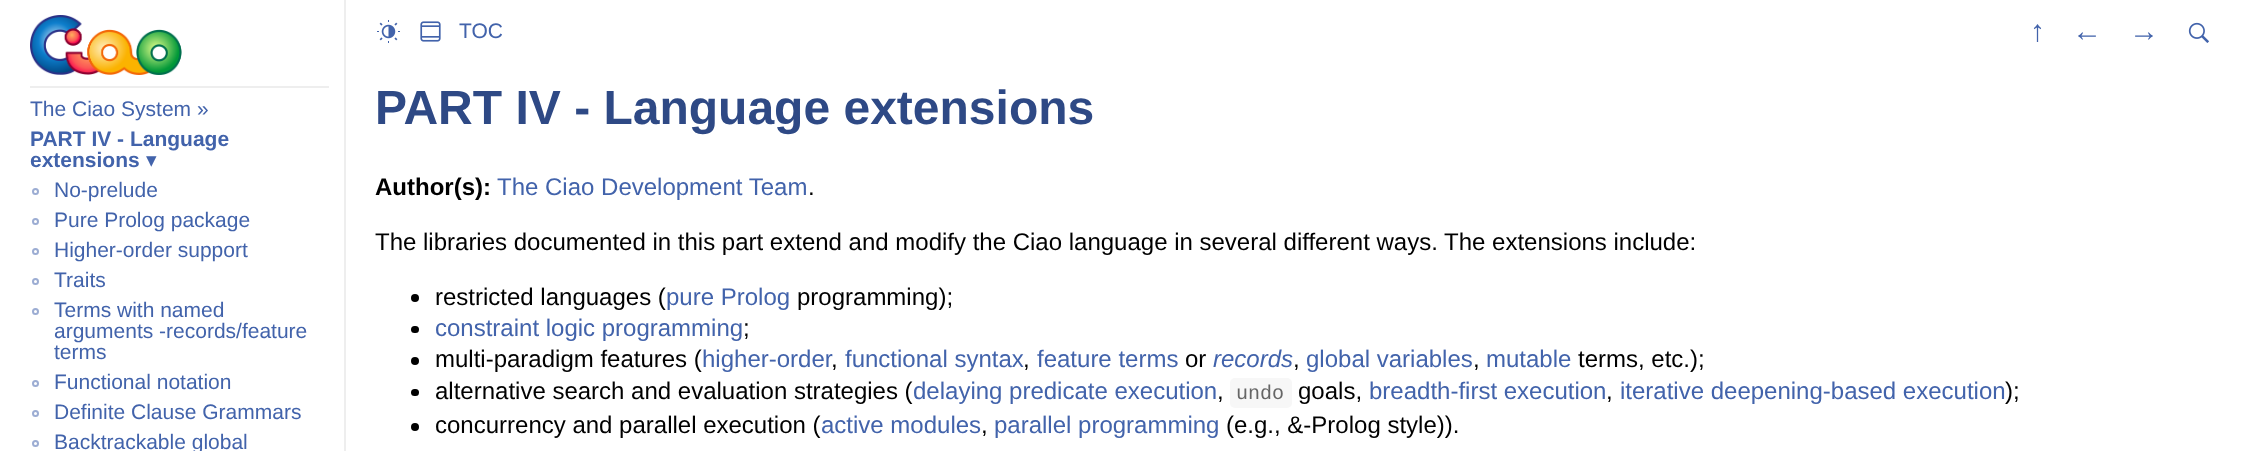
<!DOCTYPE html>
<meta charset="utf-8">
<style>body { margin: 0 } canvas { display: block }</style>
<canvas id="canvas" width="2255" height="451"></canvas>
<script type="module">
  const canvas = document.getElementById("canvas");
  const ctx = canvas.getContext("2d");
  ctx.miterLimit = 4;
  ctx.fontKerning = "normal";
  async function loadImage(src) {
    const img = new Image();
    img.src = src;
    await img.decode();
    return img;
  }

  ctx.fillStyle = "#ffffff";
  ctx.fillRect(0, 0, 2255, 451);
  ctx.fillStyle = "#eeeeee";
  ctx.fillRect(344, 0, 2, 451);
  ctx.drawImage(await loadImage("img1.png"), 30, 15, 152, 60);
  ctx.fillRect(30, 86, 299, 2);
  ctx.font = "21px Liberation Sans";
  ctx.fillStyle = "#4263ab";
  ctx.fillText("The Ciao System »", 30, 116);
  ctx.font = "bold 21px Liberation Sans";
  ctx.fillText("PART IV - Language", 30, 146);
  ctx.fillText("extensions", 30, 167);
  ctx.font = "21px DejaVu Sans";
  ctx.fillText("▾", 146, 167);
  ctx.beginPath();
  ctx.arc(35.5, 191.5, 2.5, 0, Math.PI * 2);
  ctx.strokeStyle = "#9cadd3";
  ctx.lineWidth = 2;
  ctx.stroke();
  ctx.font = "21px Liberation Sans";
  ctx.fillText("No-prelude", 54, 197);
  ctx.beginPath();
  ctx.arc(35.5, 221.5, 2.5, 0, Math.PI * 2);
  ctx.stroke();
  ctx.fillText("Pure Prolog package", 54, 227);
  ctx.beginPath();
  ctx.arc(35.5, 251.5, 2.5, 0, Math.PI * 2);
  ctx.stroke();
  ctx.fillText("Higher-order support", 54, 257);
  ctx.beginPath();
  ctx.arc(35.5, 281.5, 2.5, 0, Math.PI * 2);
  ctx.stroke();
  ctx.fillText("Traits", 54, 287);
  ctx.beginPath();
  ctx.arc(35.5, 311.5, 2.5, 0, Math.PI * 2);
  ctx.stroke();
  ctx.fillText("Terms with named", 54, 317);
  ctx.fillText("arguments -records/feature", 54, 338);
  ctx.fillText("terms", 54, 359);
  ctx.beginPath();
  ctx.arc(35.5, 383.5, 2.5, 0, Math.PI * 2);
  ctx.stroke();
  ctx.fillText("Functional notation", 54, 389);
  ctx.beginPath();
  ctx.arc(35.5, 413.5, 2.5, 0, Math.PI * 2);
  ctx.stroke();
  ctx.fillText("Definite Clause Grammars", 54, 419);
  ctx.beginPath();
  ctx.arc(35.5, 443.5, 2.5, 0, Math.PI * 2);
  ctx.stroke();
  ctx.fillText("Backtrackable global", 54, 449);
  ctx.drawImage(await loadImage("img2.png"), 377, 20, 23, 23);
  ctx.drawImage(await loadImage("img3.png"), 420, 21, 21, 21);
  ctx.fillText("TOC", 459, 38);
  ctx.font = "30px Liberation Sans";
  ctx.fillText("↑", 2030, 41);
  ctx.fillText("←", 2072, 41);
  ctx.fillText("→", 2129, 41);
  ctx.drawImage(await loadImage("img4.png"), 2188, 22, 21, 21);
  ctx.font = "bold 48px Liberation Sans";
  ctx.fillStyle = "#2e4985";
  ctx.fillText("PART IV - Language extensions", 375, 124);
  ctx.font = "bold 24px Liberation Sans";
  ctx.fillStyle = "#000000";
  ctx.fillText("Author(s):", 375, 195);
  ctx.font = "24px Liberation Sans";
  ctx.fillStyle = "#4263ab";
  ctx.fillText("The Ciao Development Team", 497, 195);
  ctx.fillStyle = "#000000";
  ctx.fillText(".", 808, 195);
  ctx.fillText("The libraries documented in this part extend and modify the Ciao language in several different ways. The extensions include:", 375, 250);
  ctx.beginPath();
  ctx.arc(415, 298, 4, 0, Math.PI * 2);
  ctx.fill();
  ctx.fillText("restricted languages (", 435, 305);
  ctx.fillStyle = "#4263ab";
  ctx.fillText("pure Prolog", 666, 305);
  ctx.fillStyle = "#000000";
  ctx.fillText("programming);", 797, 305);
  ctx.beginPath();
  ctx.roundRect(411, 326, 8, 7, 3.5);
  ctx.fill();
  ctx.fillStyle = "#4263ab";
  ctx.fillText("constraint logic programming", 435, 336);
  ctx.fillStyle = "#000000";
  ctx.fillText(";", 743, 336);
  ctx.beginPath();
  ctx.arc(415, 361, 4, 0, Math.PI * 2);
  ctx.fill();
  ctx.fillText("multi-paradigm features (", 435, 367);
  ctx.fillStyle = "#4263ab";
  ctx.fillText("higher-order", 702, 367);
  ctx.fillText("functional syntax", 845, 367);
  ctx.fillText("feature terms", 1037, 367);
  ctx.fillStyle = "#000000";
  ctx.fillText("or", 1185, 367);
  ctx.font = "italic 24px Liberation Sans";
  ctx.fillStyle = "#4263ab";
  ctx.fillText("records", 1213, 367);
  ctx.font = "24px Liberation Sans";
  ctx.fillText("global variables", 1306, 367);
  ctx.fillText("mutable", 1486, 367);
  ctx.fillStyle = "#000000";
  ctx.fillText("terms, etc.);", 1578, 367);
  ctx.fillText(",", 831, 367);
  ctx.fillText(",", 1023, 367);
  ctx.fillText(",", 1293, 367);
  ctx.fillText(",", 1473, 367);
  ctx.beginPath();
  ctx.roundRect(411, 389, 8, 7, 3.5);
  ctx.fill();
  ctx.fillText("alternative search and evaluation strategies (", 435, 399);
  ctx.fillStyle = "#4263ab";
  ctx.fillText("delaying predicate execution", 913, 399);
  ctx.fillStyle = "#f7f7f7";
  ctx.beginPath();
  ctx.roundRect(1230, 378, 62, 30, 5);
  ctx.fill();
  ctx.font = "20px Liberation Mono";
  ctx.fillStyle = "#666666";
  ctx.fillText("undo", 1236, 399);
  ctx.font = "24px Liberation Sans";
  ctx.fillStyle = "#000000";
  ctx.fillText("goals,", 1298, 399);
  ctx.fillStyle = "#4263ab";
  ctx.fillText("breadth-first execution", 1369, 399);
  ctx.fillText("iterative deepening-based execution", 1620, 399);
  ctx.fillStyle = "#000000";
  ctx.fillText(");", 2005, 399);
  ctx.fillText(",", 1217, 399);
  ctx.fillText(",", 1606, 399);
  ctx.beginPath();
  ctx.arc(415, 427, 4, 0, Math.PI * 2);
  ctx.fill();
  ctx.fillText("concurrency and parallel execution (", 435, 433);
  ctx.fillStyle = "#4263ab";
  ctx.fillText("active modules", 821, 433);
  ctx.fillText("parallel programming", 994, 433);
  ctx.fillStyle = "#000000";
  ctx.fillText("(e.g., &-Prolog style)).", 1226, 433);
  ctx.fillText(",", 981, 433);
</script>
